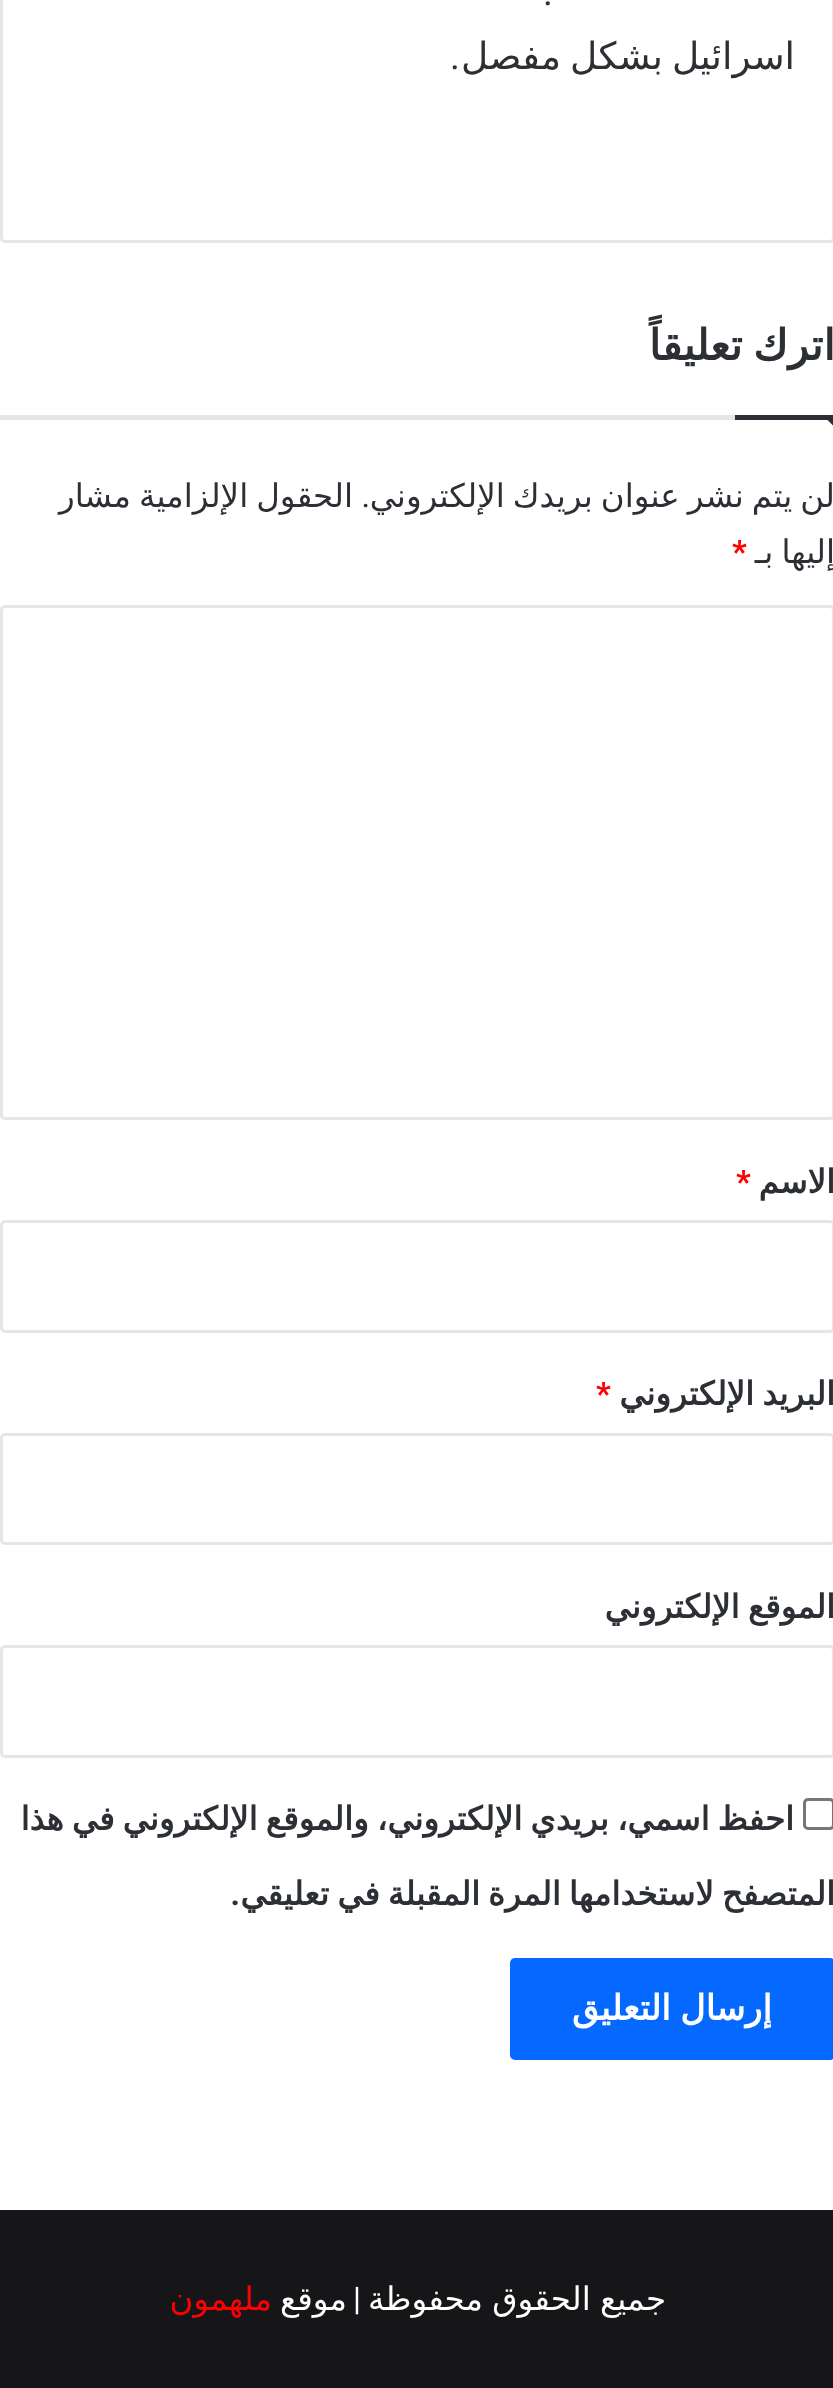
<!DOCTYPE html>
<meta charset="utf-8">
<style>body { margin: 0 } canvas { display: block }</style>
<canvas id="canvas" width="833" height="2388"></canvas>
<script type="module">
  const canvas = document.getElementById("canvas");
  const ctx = canvas.getContext("2d");
  ctx.miterLimit = 4;
  ctx.fontKerning = "normal";

  ctx.fillStyle = "#ffffff";
  ctx.fillRect(0, 0, 833, 2388);
  ctx.beginPath();
  ctx.roundRect(1.5, -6.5, 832, 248, 3.5);
  ctx.strokeStyle = "#e6e6e6";
  ctx.lineWidth = 3;
  ctx.stroke();
  ctx.direction = "rtl";
  ctx.font = "37.5px Roboto";
  ctx.fillStyle = "#2c2f34";
  ctx.fillText(".", 553, 5);
  ctx.wordSpacing = "-3px";
  ctx.font = "37.5px DejaVu Sans";
  ctx.fillText("اسرائيل بشكل مفصل", 795, 69);
  ctx.wordSpacing = "0px";
  ctx.font = "37.5px Roboto";
  ctx.fillText(".", 460, 69);
  ctx.fillStyle = "#e6e6e6";
  ctx.fillRect(0, 415, 735, 5);
  ctx.wordSpacing = "-3px";
  ctx.font = "bold 42.5px DejaVu Sans";
  ctx.fillStyle = "#2c2f34";
  ctx.fillText("اترك تعليقاً", 835, 360);
  ctx.beginPath();
  ctx.moveTo(822.5, 415);
  ctx.lineTo(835, 415);
  ctx.lineTo(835, 427.5);
  ctx.closePath();
  ctx.fill();
  ctx.fillRect(735, 415, 98, 5);
  ctx.wordSpacing = "-2.25px";
  ctx.font = "32.5px DejaVu Sans";
  ctx.fillText("لن يتم نشر عنوان بريدك الإلكتروني", 835, 507);
  ctx.wordSpacing = "0px";
  ctx.font = "32.5px Roboto";
  ctx.fillText(".", 370, 507);
  ctx.wordSpacing = "-2.25px";
  ctx.font = "32.5px DejaVu Sans";
  ctx.fillText("الحقول الإلزامية مشار", 353, 507);
  ctx.fillText("إليها بـ", 835, 563);
  ctx.wordSpacing = "0px";
  ctx.direction = "ltr";
  ctx.font = "bold 32.5px Roboto";
  ctx.fillStyle = "#ff0000";
  ctx.fillText("*", 732, 563);
  ctx.beginPath();
  ctx.roundRect(1.5, 606.5, 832, 512, 3.5);
  ctx.stroke();
  ctx.direction = "rtl";
  ctx.font = "bold 32.5px DejaVu Sans";
  ctx.fillStyle = "#2c2f34";
  ctx.fillText("الاسم", 835, 1193);
  ctx.direction = "ltr";
  ctx.font = "bold 32.5px Roboto";
  ctx.fillStyle = "#ff0000";
  ctx.fillText("*", 736, 1193);
  ctx.beginPath();
  ctx.roundRect(1.5, 1221.5, 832, 110, 3.5);
  ctx.stroke();
  ctx.wordSpacing = "-2.25px";
  ctx.direction = "rtl";
  ctx.font = "bold 32.5px DejaVu Sans";
  ctx.fillStyle = "#2c2f34";
  ctx.fillText("البريد الإلكتروني", 835, 1405);
  ctx.wordSpacing = "0px";
  ctx.direction = "ltr";
  ctx.font = "bold 32.5px Roboto";
  ctx.fillStyle = "#ff0000";
  ctx.fillText("*", 596, 1405);
  ctx.beginPath();
  ctx.roundRect(1.5, 1434.5, 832, 109, 3.5);
  ctx.stroke();
  ctx.wordSpacing = "-2.25px";
  ctx.direction = "rtl";
  ctx.font = "bold 32.5px DejaVu Sans";
  ctx.fillStyle = "#2c2f34";
  ctx.fillText("الموقع الإلكتروني", 835, 1618);
  ctx.beginPath();
  ctx.roundRect(1.5, 1646.5, 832, 110, 3.5);
  ctx.stroke();
  ctx.beginPath();
  ctx.roundRect(804.5, 1799.5, 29, 29, 3.5);
  ctx.strokeStyle = "#767676";
  ctx.stroke();
  ctx.fillText("احفظ اسمي، بريدي الإلكتروني، والموقع الإلكتروني في هذا", 794, 1830);
  ctx.fillText("المتصفح لاستخدامها المرة المقبلة في تعليقي", 835, 1905);
  ctx.wordSpacing = "0px";
  ctx.font = "bold 32.5px Roboto";
  ctx.fillText(".", 240, 1905);
  ctx.fillStyle = "#0669ff";
  ctx.beginPath();
  ctx.roundRect(510, 1958, 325, 102, 5);
  ctx.fill();
  ctx.wordSpacing = "-2px";
  ctx.font = "bold 35px DejaVu Sans";
  ctx.fillStyle = "#ffffff";
  ctx.fillText("إرسال التعليق", 772, 2020);
  ctx.fillStyle = "#161619";
  ctx.fillRect(0, 2210, 833, 178);
  ctx.wordSpacing = "-1px";
  ctx.font = "32.5px DejaVu Sans";
  ctx.fillStyle = "#ffffff";
  ctx.fillText("جميع الحقوق محفوظة", 666, 2310);
  ctx.wordSpacing = "0px";
  ctx.font = "32.5px Roboto";
  ctx.fillText("|", 361, 2310);
  ctx.font = "32.5px DejaVu Sans";
  ctx.fillText("موقع", 347, 2310);
  ctx.fillStyle = "#ff0000";
  ctx.fillText("ملهمون", 272, 2310);
</script>
